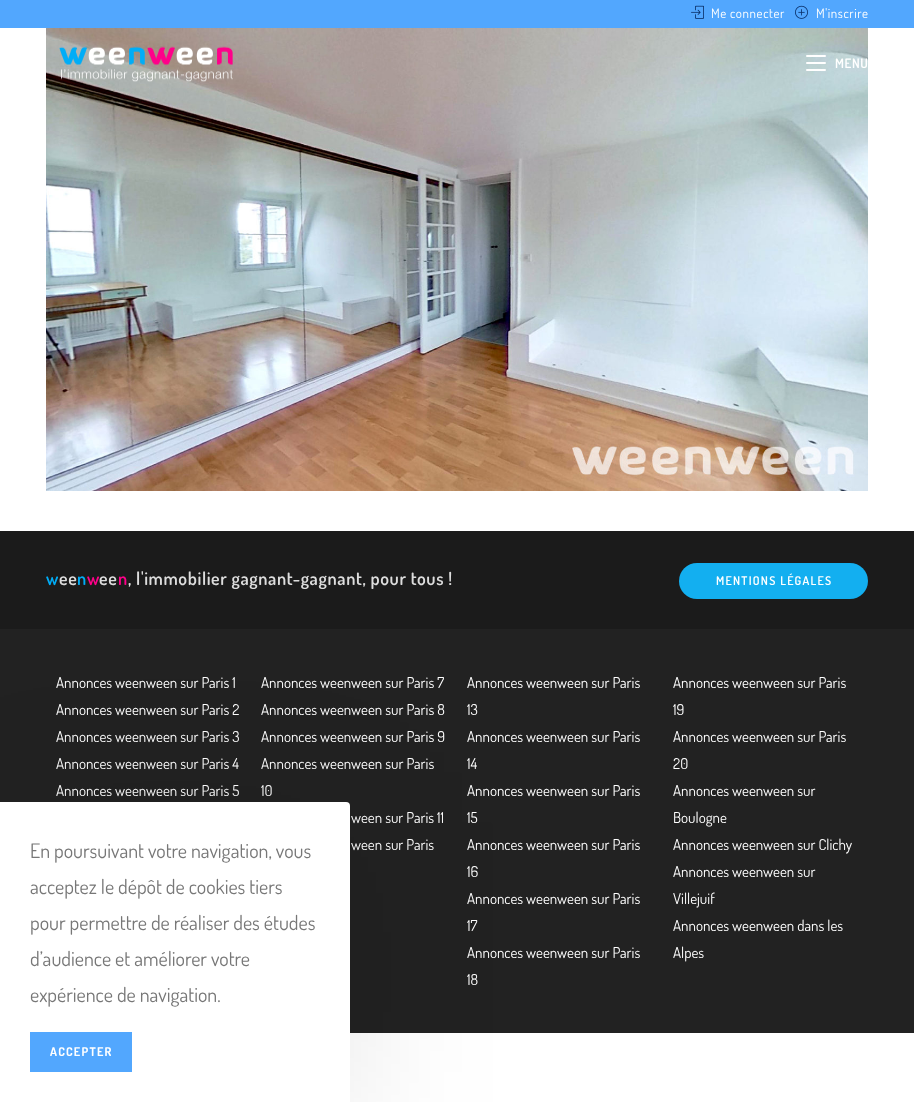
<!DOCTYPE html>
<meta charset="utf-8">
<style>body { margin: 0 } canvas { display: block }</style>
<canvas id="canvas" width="914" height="1102"></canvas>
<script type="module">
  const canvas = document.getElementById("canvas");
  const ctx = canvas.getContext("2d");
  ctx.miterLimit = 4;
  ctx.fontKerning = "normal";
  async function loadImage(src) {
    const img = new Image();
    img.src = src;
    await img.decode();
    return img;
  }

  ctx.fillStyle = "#ffffff";
  ctx.fillRect(0, 0, 914, 1102);
  ctx.fillStyle = "#52a7fe";
  ctx.fillRect(0, 0, 914, 28);
  ctx.drawImage(await loadImage("img1.png"), 691, 5, 13, 14);
  ctx.letterSpacing = "0.6px";
  ctx.font = "13px Dosis";
  ctx.fillStyle = "#ffffff";
  ctx.fillText("Me connecter", 711, 18);
  ctx.drawImage(await loadImage("img2.png"), 795, 5, 13, 14);
  ctx.fillText("M'inscrire", 816, 18);
  ctx.drawImage(await loadImage("img3.png"), 46, 28, 822, 463);
  ctx.drawImage(await loadImage("img4.png"), 59, 46, 174, 36);
  ctx.beginPath();
  ctx.roundRect(806, 62, 20, 2, 1);
  ctx.fill();
  ctx.beginPath();
  ctx.roundRect(806, 55, 20, 2, 1);
  ctx.fill();
  ctx.beginPath();
  ctx.roundRect(806, 69, 20, 2, 1);
  ctx.fill();
  ctx.font = "600 13px Dosis";
  ctx.fillText("MENU", 835, 68);
  ctx.fillStyle = "#1b1b1b";
  ctx.fillRect(0, 531, 914, 98);
  ctx.font = "600 18px Dosis";
  ctx.fillStyle = "#00adf7";
  ctx.fillText("w", 46, 585);
  ctx.fillStyle = "#dddddd";
  ctx.fillText("ee", 59, 585);
  ctx.fillStyle = "#00adf7";
  ctx.fillText("n", 77, 585);
  ctx.fillStyle = "#ff008a";
  ctx.fillText("w", 87, 585);
  ctx.fillStyle = "#dddddd";
  ctx.fillText("ee", 99, 585);
  ctx.fillStyle = "#ff008a";
  ctx.fillText("n", 118, 585);
  ctx.fillStyle = "#dddddd";
  ctx.fillText(", l'immobilier gagnant-gagnant, pour tous !", 128, 585);
  ctx.fillStyle = "#13aff0";
  ctx.beginPath();
  ctx.roundRect(679, 563, 189, 36, 18);
  ctx.fill();
  ctx.letterSpacing = "1.25px";
  ctx.font = "600 12px Dosis";
  ctx.fillStyle = "#ffffff";
  ctx.fillText("MENTIONS LÉGALES", 716, 585);
  ctx.fillStyle = "#222222";
  ctx.fillRect(0, 629, 914, 404);
  ctx.letterSpacing = "0px";
  ctx.font = "15px Dosis";
  ctx.fillStyle = "#ffffff";
  ctx.fillText("Annonces weenween sur Paris 1", 56, 688);
  ctx.fillText("Annonces weenween sur Paris 2", 56, 715);
  ctx.fillText("Annonces weenween sur Paris 3", 56, 742);
  ctx.fillText("Annonces weenween sur Paris 4", 56, 769);
  ctx.fillText("Annonces weenween sur Paris 5", 56, 796);
  ctx.fillText("Annonces weenween sur Paris 7", 261, 688);
  ctx.fillText("Annonces weenween sur Paris 8", 261, 715);
  ctx.fillText("Annonces weenween sur Paris 9", 261, 742);
  ctx.fillText("Annonces weenween sur Paris", 261, 769);
  ctx.fillText("10", 261, 796);
  ctx.fillText("ween sur Paris 11", 351, 823);
  ctx.fillText("ween sur Paris", 351, 850);
  ctx.fillText("Annonces weenween sur Paris", 467, 688);
  ctx.fillText("13", 467, 715);
  ctx.fillText("Annonces weenween sur Paris", 467, 742);
  ctx.fillText("14", 467, 769);
  ctx.fillText("Annonces weenween sur Paris", 467, 796);
  ctx.fillText("15", 467, 823);
  ctx.fillText("Annonces weenween sur Paris", 467, 850);
  ctx.fillText("16", 467, 877);
  ctx.fillText("Annonces weenween sur Paris", 467, 904);
  ctx.fillText("17", 467, 931);
  ctx.fillText("Annonces weenween sur Paris", 467, 958);
  ctx.fillText("18", 467, 985);
  ctx.fillText("Annonces weenween sur Paris", 673, 688);
  ctx.fillText("19", 673, 715);
  ctx.fillText("Annonces weenween sur Paris", 673, 742);
  ctx.fillText("20", 673, 769);
  ctx.fillText("Annonces weenween sur", 673, 796);
  ctx.fillText("Boulogne", 673, 823);
  ctx.fillText("Annonces weenween sur Clichy", 673, 850);
  ctx.fillText("Annonces weenween sur", 673, 877);
  ctx.fillText("Villejuif", 673, 904);
  ctx.fillText("Annonces weenween dans les", 673, 931);
  ctx.fillText("Alpes", 673, 958);
  ctx.fillStyle = "rgba(0, 0, 0, 0.1)";
  ctx.filter = "blur(75px)";
  ctx.beginPath();
  ctx.roundRect(0, 822, 350, 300, 4);
  ctx.fill();
  ctx.filter = "none";
  ctx.fillStyle = "#ffffff";
  ctx.beginPath();
  ctx.roundRect(0, 802, 350, 300, [0, 4, 0, 0]);
  ctx.fill();
  ctx.font = "20px Dosis";
  ctx.fillStyle = "#777777";
  ctx.fillText("En poursuivant votre navigation, vous", 30, 858);
  ctx.fillText("acceptez le dépôt de cookies tiers", 30, 894);
  ctx.fillText("pour permettre de réaliser des études", 30, 930);
  ctx.fillText("d’audience et améliorer votre", 30, 966);
  ctx.fillText("expérience de navigation.", 30, 1002);
  ctx.fillStyle = "#52a7fe";
  ctx.fillRect(30, 1032, 102, 40);
  ctx.letterSpacing = "1.25px";
  ctx.font = "bold 12px Dosis";
  ctx.fillStyle = "#ffffff";
  ctx.fillText("ACCEPTER", 50, 1056);
</script>
